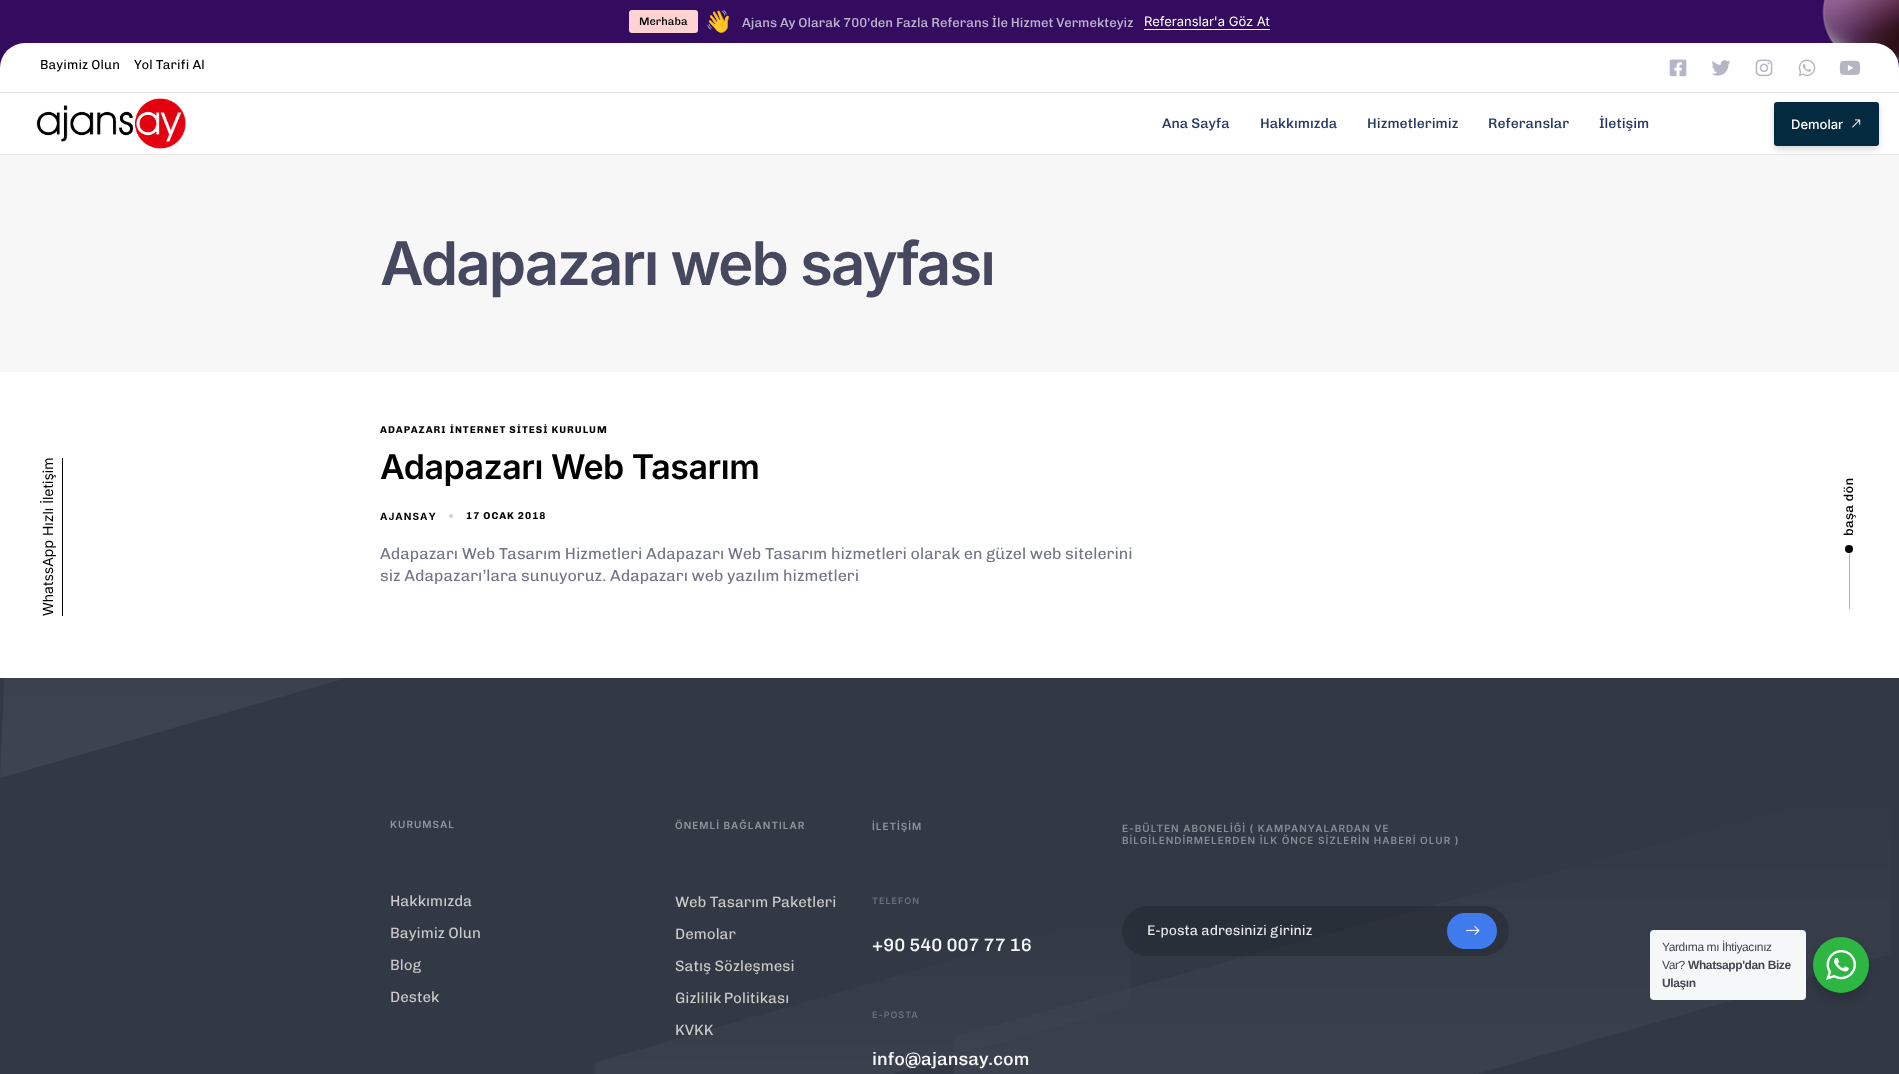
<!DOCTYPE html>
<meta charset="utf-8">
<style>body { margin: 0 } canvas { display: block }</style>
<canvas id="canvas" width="1899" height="1074"></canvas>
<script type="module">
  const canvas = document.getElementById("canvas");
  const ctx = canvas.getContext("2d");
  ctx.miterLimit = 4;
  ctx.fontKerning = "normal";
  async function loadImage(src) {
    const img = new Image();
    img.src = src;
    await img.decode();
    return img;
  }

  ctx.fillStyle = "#ffffff";
  ctx.fillRect(0, 0, 1899, 1074);
  ctx.fillStyle = "#330c60";
  ctx.fillRect(0, 0, 1899, 68);
  ctx.drawImage(await loadImage("img1.png"), 1822, 0, 77, 61);
  ctx.fillStyle = "#ffd3d3";
  ctx.beginPath();
  ctx.roundRect(629, 10, 69, 23, 3);
  ctx.fill();
  ctx.font = "500 11px Chivo";
  ctx.fillStyle = "#000000";
  ctx.fillText("Merhaba", 639, 25);
  ctx.font = "22px Noto Color Emoji";
  ctx.fillStyle = "#737588";
  ctx.fillText("👋", 705, 29);
  ctx.font = "500 13px Chivo";
  ctx.fillStyle = "#bcafcb";
  ctx.fillText("Ajans Ay Olarak 700'den Fazla Referans İle Hizmet Vermekteyiz", 742, 27);
  ctx.font = "13px Inter";
  ctx.fillStyle = "#ffffff";
  ctx.fillText("Referanslar'a Göz At", 1144, 26);
  ctx.fillRect(1144, 29, 126, 1);
  ctx.beginPath();
  ctx.roundRect(0, 43, 1899, 50, [25, 25, 0, 0]);
  ctx.fill();
  ctx.fillStyle = "#e3e3e3";
  ctx.fillRect(0, 92, 1899, 1);
  ctx.letterSpacing = "0.1px";
  ctx.font = "13px Chivo";
  ctx.fillStyle = "#000000";
  ctx.fillText("Bayimiz Olun", 40, 69);
  ctx.fillText("Yol Tarifi Al", 134, 69);
  ctx.drawImage(await loadImage("img2.png"), 1669, 59, 18, 18);
  ctx.drawImage(await loadImage("img3.png"), 1712, 60, 19, 16);
  ctx.drawImage(await loadImage("img4.png"), 1755, 59, 18, 18);
  ctx.drawImage(await loadImage("img5.png"), 1798, 59, 18, 17);
  ctx.drawImage(await loadImage("img6.png"), 1839, 60, 22, 15);
  ctx.fillStyle = "#e8e8e8";
  ctx.fillRect(0, 154, 1899, 1);
  ctx.drawImage(await loadImage("img7.png"), 36, 98, 150, 51);
  ctx.letterSpacing = "0px";
  ctx.font = "500 14px Chivo";
  ctx.fillStyle = "#283c62";
  ctx.fillText("Ana Sayfa", 1162, 128);
  ctx.fillText("Hakkımızda", 1260, 128);
  ctx.fillText("Hizmetlerimiz", 1367, 128);
  ctx.fillText("Referanslar", 1488, 128);
  ctx.fillText("İletişim", 1599, 128);
  ctx.fillStyle = "#f7f7f7";
  ctx.fillRect(0, 155, 1899, 217);
  ctx.fillStyle = "rgba(0, 0, 0, 0.16)";
  ctx.filter = "blur(3px)";
  ctx.beginPath();
  ctx.roundRect(1774, 105, 105, 44, 3);
  ctx.fill();
  ctx.filter = "none";
  ctx.fillStyle = "#032a3e";
  ctx.beginPath();
  ctx.roundRect(1774, 102, 105, 44, 3);
  ctx.fill();
  ctx.font = "500 13px Inter";
  ctx.fillStyle = "#ffffff";
  ctx.fillText("Demolar", 1791, 129);
  ctx.drawImage(await loadImage("img8.png"), 1852, 119, 9, 9);
  ctx.font = "14px Inter";
  ctx.fillStyle = "#000000";
  ctx.save();
  ctx.translate(53, 616);
  ctx.rotate(-90 * Math.PI / 180);
  ctx.fillText("WhatssApp Hızlı İletişim", 0, 0);
  ctx.restore();
  ctx.fillRect(62, 458, 1, 158);
  ctx.letterSpacing = "0.25px";
  ctx.font = "500 13px Chivo";
  ctx.save();
  ctx.translate(1853, 536);
  ctx.rotate(-90 * Math.PI / 180);
  ctx.fillText("başa dön", 0, 0);
  ctx.restore();
  ctx.fillStyle = "#b3b3b3";
  ctx.fillRect(1849, 549, 1, 60);
  ctx.fillStyle = "#000000";
  ctx.beginPath();
  ctx.arc(1849, 549, 4, 0, Math.PI * 2);
  ctx.fill();
  ctx.letterSpacing = "-2px";
  ctx.font = "600 60px Inter";
  ctx.fillStyle = "#45485f";
  ctx.fillText("Adapazarı web sayfası", 380, 285);
  ctx.letterSpacing = "1px";
  ctx.font = "bold 10px Chivo";
  ctx.fillStyle = "#000000";
  ctx.fillText("ADAPAZARI İNTERNET SİTESİ KURULUM", 380, 433);
  ctx.letterSpacing = "-0.5px";
  ctx.font = "600 34px Inter";
  ctx.fillText("Adapazarı Web Tasarım", 380, 479);
  ctx.letterSpacing = "1px";
  ctx.font = "bold 10px Inter";
  ctx.fillText("AJANSAY", 380, 520);
  ctx.fillStyle = "#cecfd5";
  ctx.beginPath();
  ctx.arc(451, 516, 2, 0, Math.PI * 2);
  ctx.fill();
  ctx.font = "bold 10px Chivo";
  ctx.fillStyle = "#000000";
  ctx.fillText("17 OCAK 2018", 466, 519);
  ctx.letterSpacing = "0px";
  ctx.font = "16px Chivo";
  ctx.fillStyle = "#737588";
  ctx.fillText("Adapazarı Web Tasarım Hizmetleri Adapazarı Web Tasarım hizmetleri olarak en güzel web sitelerini", 380, 559);
  ctx.fillText("siz Adapazarı’lara sunuyoruz. Adapazarı web yazılım hizmetleri", 380, 581);
  ctx.fillStyle = "#323945";
  ctx.fillRect(0, 678, 1899, 396);
  ctx.drawImage(await loadImage("img9.png"), 0, 678, 1891, 396);
  ctx.letterSpacing = "1px";
  ctx.font = "600 10px Inter";
  ctx.fillStyle = "#92969c";
  ctx.fillText("KURUMSAL", 390, 828);
  ctx.letterSpacing = "0px";
  ctx.font = "15px Chivo";
  ctx.fillStyle = "#cacaca";
  ctx.fillText("Hakkımızda", 390, 906);
  ctx.fillText("Bayimiz Olun", 390, 938);
  ctx.fillText("Blog", 390, 970);
  ctx.fillText("Destek", 390, 1002);
  ctx.letterSpacing = "1px";
  ctx.font = "600 10px Inter";
  ctx.fillStyle = "#92969c";
  ctx.fillText("ÖNEMLİ BAĞLANTILAR", 675, 829);
  ctx.letterSpacing = "0px";
  ctx.font = "15px Chivo";
  ctx.fillStyle = "#cacaca";
  ctx.fillText("Web Tasarım Paketleri", 675, 907);
  ctx.fillText("Demolar", 675, 939);
  ctx.fillText("Satış Sözleşmesi", 675, 971);
  ctx.wordSpacing = "-1px";
  ctx.fillText("Gizlilik Politikası", 675, 1003);
  ctx.wordSpacing = "0px";
  ctx.fillText("KVKK", 675, 1035);
  ctx.letterSpacing = "1px";
  ctx.font = "600 10px Inter";
  ctx.fillStyle = "#92969c";
  ctx.fillText("İLETİŞİM", 872, 830);
  ctx.font = "600 9px Inter";
  ctx.fillStyle = "#6c6f7d";
  ctx.fillText("TELEFON", 872, 904);
  ctx.letterSpacing = "0px";
  ctx.font = "500 18px Chivo";
  ctx.fillStyle = "#f6f7f7";
  ctx.fillText("+90 540 007 77 16", 872, 951);
  ctx.letterSpacing = "1px";
  ctx.font = "600 9px Inter";
  ctx.fillStyle = "#6c6f7d";
  ctx.fillText("E-POSTA", 872, 1018);
  ctx.letterSpacing = "0px";
  ctx.font = "500 18px Chivo";
  ctx.fillStyle = "#f6f7f7";
  ctx.fillText("info@ajansay.com", 872, 1065);
  ctx.letterSpacing = "1px";
  ctx.font = "600 10px Inter";
  ctx.fillStyle = "#888d93";
  ctx.fillText("E-BÜLTEN ABONELİĞİ ( KAMPANYALARDAN VE", 1122, 832);
  ctx.fillText("BİLGİLENDİRMELERDEN İLK ÖNCE SİZLERİN HABERİ OLUR )", 1122, 844);
  ctx.fillStyle = "rgba(0, 0, 0, 0.17)";
  ctx.beginPath();
  ctx.roundRect(1122, 906, 387, 50, 25);
  ctx.fill();
  ctx.letterSpacing = "0px";
  ctx.font = "14px Chivo";
  ctx.fillStyle = "#eaebec";
  ctx.fillText("E-posta adresinizi giriniz", 1147, 935);
  ctx.fillStyle = "#3f7bed";
  ctx.beginPath();
  ctx.roundRect(1447, 913, 50, 36, 18);
  ctx.fill();
  ctx.drawImage(await loadImage("img10.png"), 1466, 926, 14, 9);
  ctx.fillStyle = "rgba(0, 0, 0, 0.14)";
  ctx.filter = "blur(4px)";
  ctx.beginPath();
  ctx.roundRect(1811, 941, 60, 60, 30);
  ctx.fill();
  ctx.filter = "none";
  ctx.fillStyle = "#f5f7f9";
  ctx.beginPath();
  ctx.roundRect(1650, 930, 156, 70, 4);
  ctx.fill();
  ctx.letterSpacing = "-0.4px";
  ctx.font = "12px Liberation Sans";
  ctx.fillStyle = "#43474e";
  ctx.fillText("Yardıma mı İhtiyacınız", 1662, 951);
  ctx.fillText("Var?", 1662, 969);
  ctx.font = "bold 12px Liberation Sans";
  ctx.fillText("Whatsapp'dan Bize", 1688, 969);
  ctx.fillText("Ulaşın", 1662, 987);
  ctx.fillStyle = "#2db742";
  ctx.beginPath();
  ctx.arc(1841, 965, 28, 0, Math.PI * 2);
  ctx.fill();
  ctx.drawImage(await loadImage("img11.png"), 1826, 950, 30, 30);
</script>
